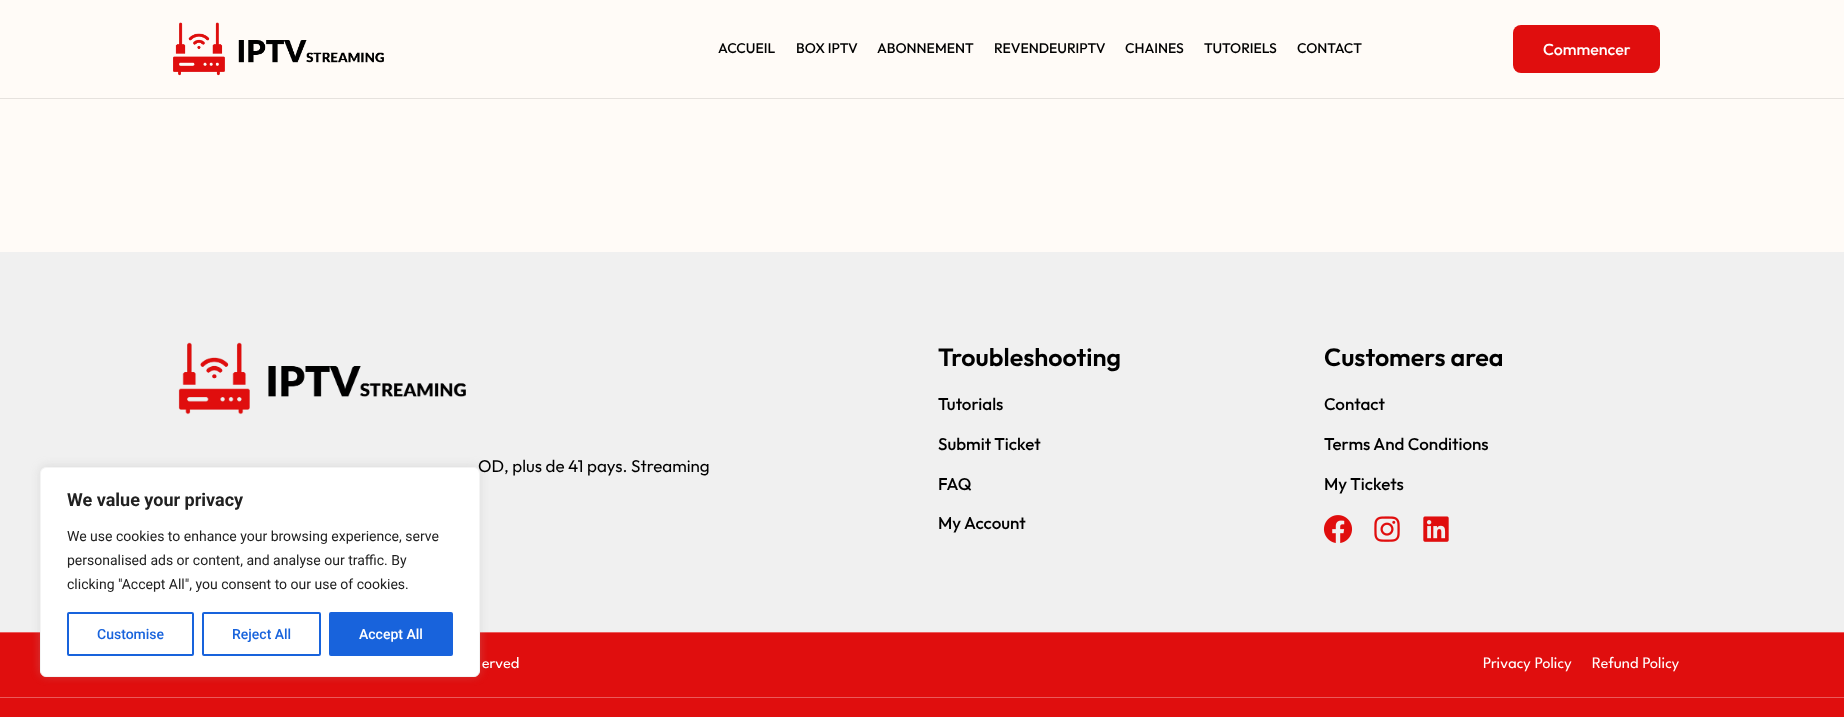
<!DOCTYPE html>
<meta charset="utf-8">
<style>body { margin: 0 } canvas { display: block }</style>
<canvas id="canvas" width="1844" height="717"></canvas>
<script type="module">
  const canvas = document.getElementById("canvas");
  const ctx = canvas.getContext("2d");
  ctx.miterLimit = 4;
  ctx.fontKerning = "normal";
  async function loadImage(src) {
    const img = new Image();
    img.src = src;
    await img.decode();
    return img;
  }

  ctx.fillStyle = "#fffbf7";
  ctx.fillRect(0, 0, 1844, 717);
  ctx.fillStyle = "#e6e2de";
  ctx.fillRect(0, 98, 1844, 1);
  ctx.drawImage(await loadImage("img1.png"), 173, 22, 211, 54);
  ctx.font = "500 14px Outfit";
  ctx.fillStyle = "#000000";
  ctx.fillText("ACCUEIL", 718, 53);
  ctx.fillText("BOX IPTV", 796, 53);
  ctx.fillText("ABONNEMENT", 877, 53);
  ctx.fillText("REVENDEURIPTV", 994, 53);
  ctx.fillText("CHAINES", 1125, 53);
  ctx.fillText("TUTORIELS", 1204, 53);
  ctx.fillText("CONTACT", 1297, 53);
  ctx.fillStyle = "#e00e0e";
  ctx.beginPath();
  ctx.roundRect(1513, 25, 147, 48, 8);
  ctx.fill();
  ctx.font = "500 16px Outfit";
  ctx.fillStyle = "#ffffff";
  ctx.fillText("Commencer", 1543, 55);
  ctx.fillStyle = "#f0f0f0";
  ctx.fillRect(0, 252, 1844, 380);
  ctx.fillStyle = "#e00e0e";
  ctx.fillRect(0, 633, 1844, 64);
  ctx.fillStyle = "#ea5b5b";
  ctx.fillRect(0, 632, 1844, 1);
  ctx.fillStyle = "rgba(172, 171, 171, 0.3)";
  ctx.filter = "blur(5px)";
  ctx.beginPath();
  ctx.roundRect(40, 466, 440, 210, 6);
  ctx.fill();
  ctx.filter = "none";
  ctx.font = "17px Outfit";
  ctx.fillStyle = "#000000";
  ctx.fillText("OD, plus de 41 pays. Streaming", 478, 472);
  ctx.fillStyle = "#ffffff";
  ctx.beginPath();
  ctx.roundRect(40.5, 467.5, 439, 209, 5.5);
  ctx.fill();
  ctx.strokeStyle = "#f4f4f4";
  ctx.stroke();
  ctx.font = "bold 18px Roboto";
  ctx.fillStyle = "#212121";
  ctx.fillText("We value your privacy", 67, 506);
  ctx.font = "14px Roboto";
  ctx.fillText("We use cookies to enhance your browsing experience, serve", 67, 541);
  ctx.fillText("personalised ads or content, and analyse our traffic. By", 67, 565);
  ctx.fillText("clicking \"Accept All\", you consent to our use of cookies.", 67, 589);
  ctx.beginPath();
  ctx.roundRect(68, 613, 125, 42, 1);
  ctx.strokeStyle = "#1863dc";
  ctx.lineWidth = 2;
  ctx.stroke();
  ctx.font = "500 14px Roboto";
  ctx.fillStyle = "#1863dc";
  ctx.fillText("Customise", 97, 639);
  ctx.beginPath();
  ctx.roundRect(203, 613, 117, 42, 1);
  ctx.stroke();
  ctx.fillText("Reject All", 232, 639);
  ctx.beginPath();
  ctx.roundRect(330, 613, 122, 42, 1);
  ctx.fill();
  ctx.stroke();
  ctx.fillStyle = "#ffffff";
  ctx.fillText("Accept All", 359, 639);
  ctx.drawImage(await loadImage("img2.png"), 178, 342, 288, 73);
  ctx.font = "600 25px Outfit";
  ctx.fillStyle = "#000000";
  ctx.fillText("Troubleshooting", 938, 366);
  ctx.font = "500 17px Outfit";
  ctx.fillText("Tutorials", 938, 410);
  ctx.fillText("Submit Ticket", 938, 450);
  ctx.fillText("FAQ", 938, 490);
  ctx.fillText("My Account", 938, 529);
  ctx.font = "600 25px Outfit";
  ctx.fillText("Customers area", 1324, 366);
  ctx.font = "500 17px Outfit";
  ctx.fillText("Contact", 1324, 410);
  ctx.fillText("Terms And Conditions", 1324, 450);
  ctx.fillText("My Tickets", 1324, 490);
  ctx.drawImage(await loadImage("img3.png"), 1323, 515, 30, 28);
  ctx.drawImage(await loadImage("img4.png"), 1374, 516, 26, 26);
  ctx.drawImage(await loadImage("img5.png"), 1423, 516, 26, 26);
  ctx.font = "16px League Spartan";
  ctx.fillStyle = "#ffffff";
  ctx.fillText("erved", 482, 668);
  ctx.fillText("Privacy Policy", 1483, 668);
  ctx.fillText("Refund Policy", 1592, 668);
  ctx.fillStyle = "#e00e0e";
  ctx.fillRect(0, 698, 1844, 19);
  ctx.fillStyle = "#ea5b5b";
  ctx.fillRect(0, 697, 1844, 1);
</script>
